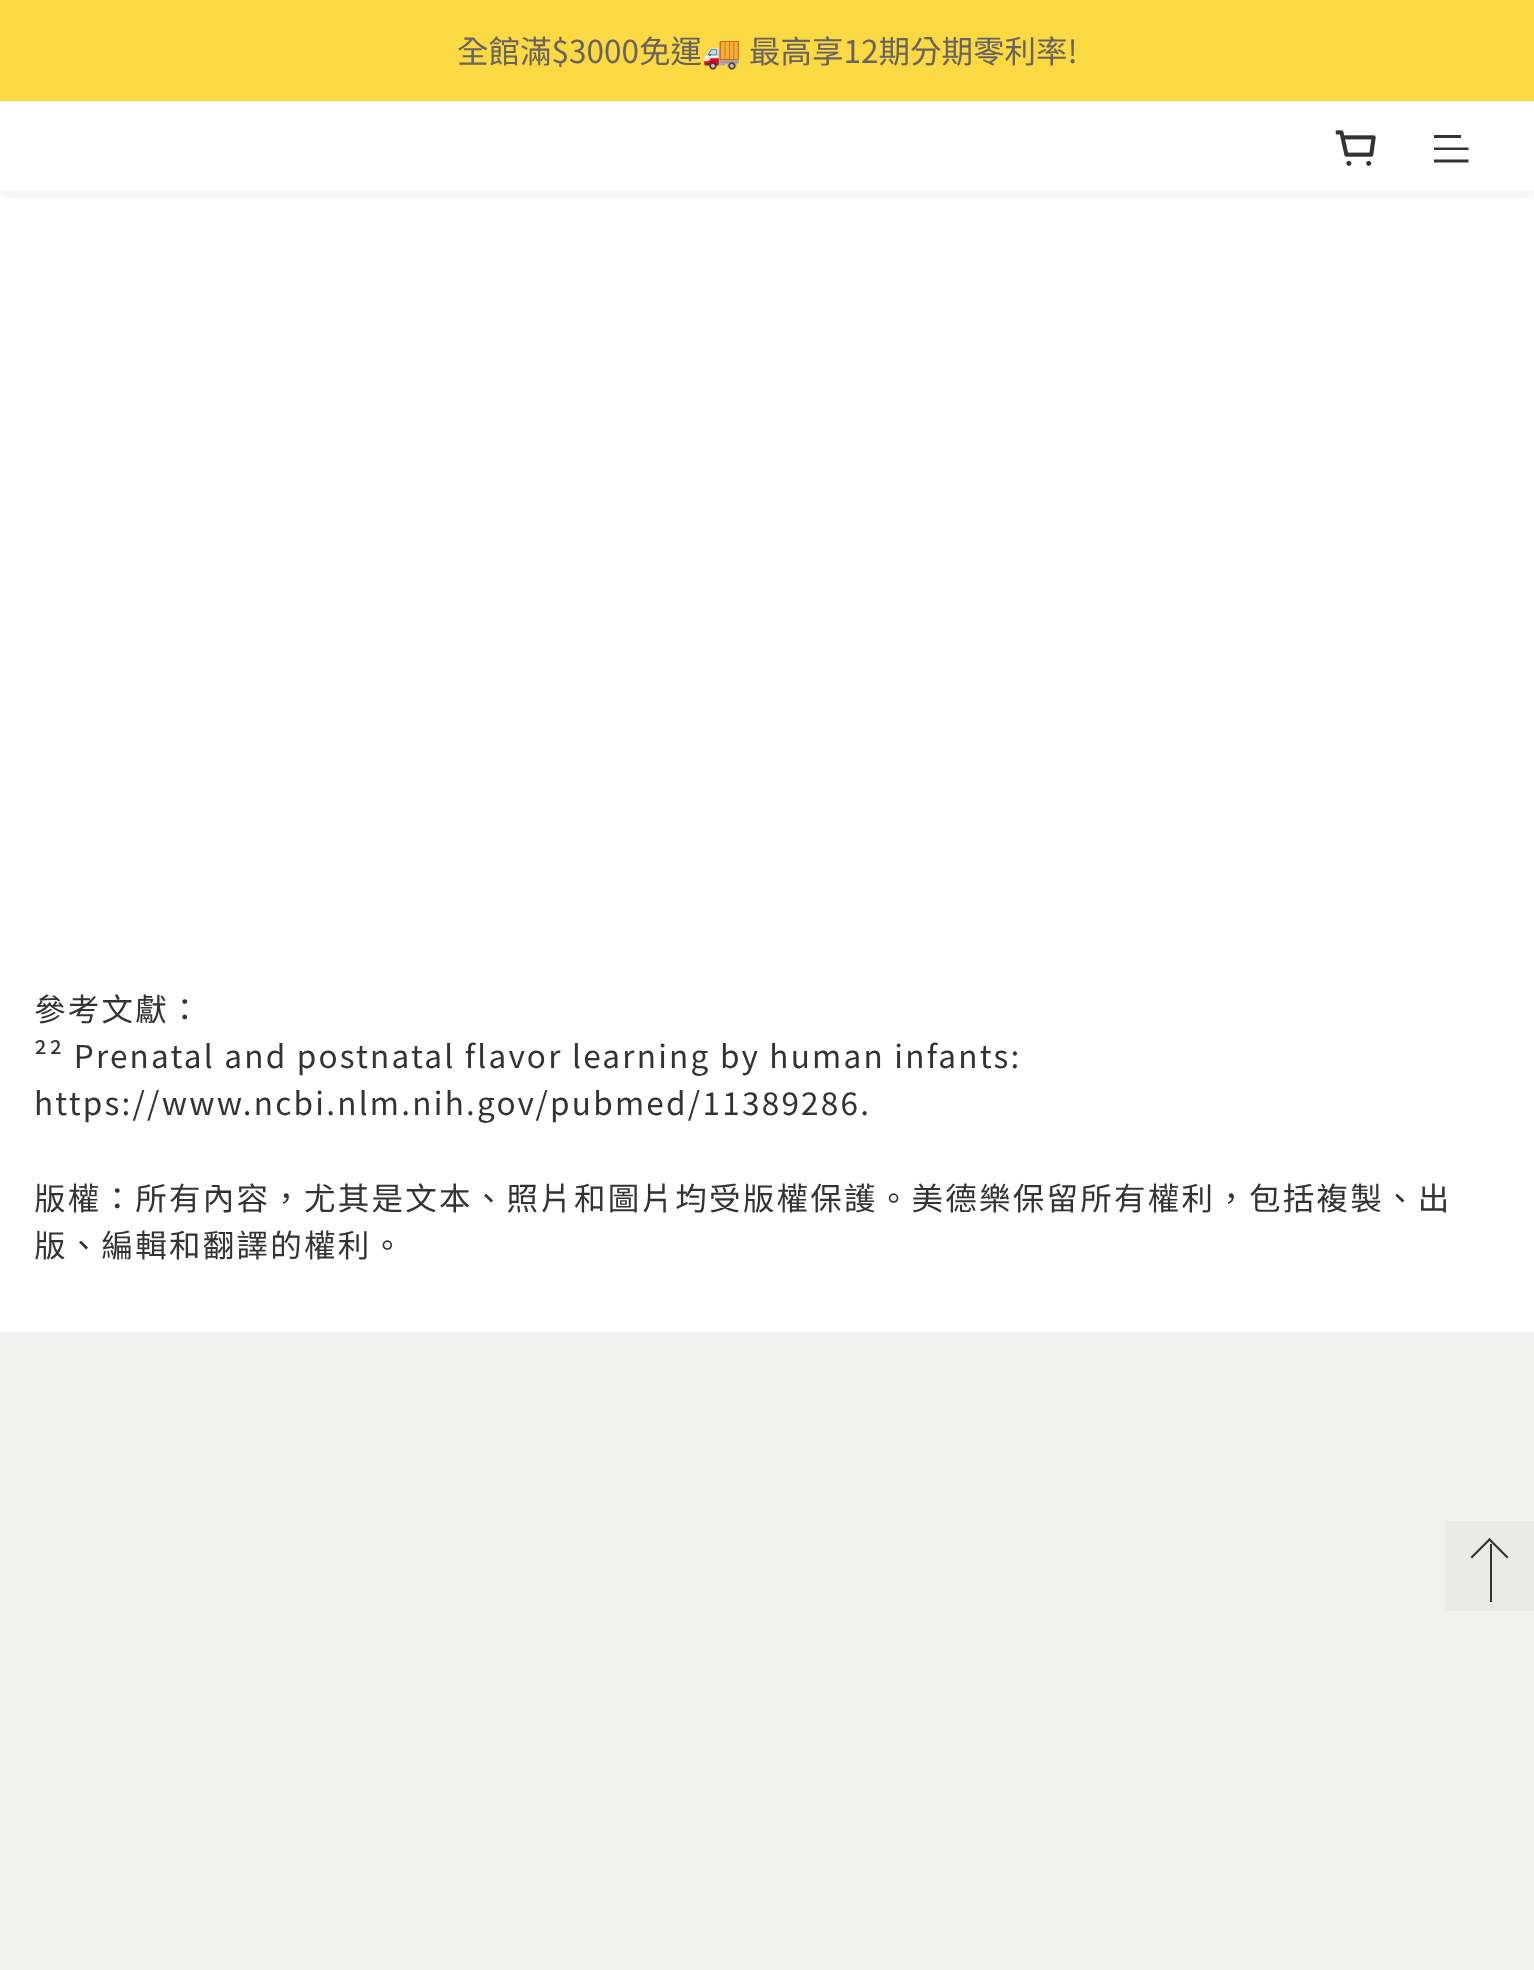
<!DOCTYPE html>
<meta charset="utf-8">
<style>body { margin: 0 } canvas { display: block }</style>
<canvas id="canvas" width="1534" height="1970"></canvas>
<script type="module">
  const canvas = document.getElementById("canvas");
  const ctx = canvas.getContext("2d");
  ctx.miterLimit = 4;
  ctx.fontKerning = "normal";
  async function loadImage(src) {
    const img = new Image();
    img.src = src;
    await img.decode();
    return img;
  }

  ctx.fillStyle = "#ffffff";
  ctx.fillRect(0, 0, 1534, 1970);
  ctx.fillStyle = "#fad942";
  ctx.fillRect(0, 0, 1534, 101);
  ctx.font = "31.5px Noto Sans TC";
  ctx.fillStyle = "#686363";
  ctx.fillText("全館滿$3000免運", 457, 63);
  ctx.font = "31.5px Noto Color Emoji";
  ctx.fillText("🚚", 702, 63);
  ctx.font = "31.5px Noto Sans TC";
  ctx.fillText("最高享12期分期零利率!", 749, 63);
  ctx.save();
  ctx.beginPath();
  ctx.rect(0, 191, 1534, 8);
  ctx.clip();
  ctx.fillStyle = "rgba(0, 0, 0, 0.06)";
  ctx.filter = "blur(7px)";
  ctx.beginPath();
  ctx.rect(0, 106, 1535, 90);
  ctx.fill();
  ctx.filter = "none";
  ctx.restore();
  ctx.drawImage(await loadImage("img1.png"), 1335, 130, 41, 36);
  ctx.fillStyle = "#333333";
  ctx.beginPath();
  ctx.moveTo(1468.5, 150);
  ctx.lineTo(1468.5, 147.5);
  ctx.lineTo(1434, 147.5);
  ctx.lineTo(1434, 150);
  ctx.closePath();
  ctx.moveTo(1461, 138);
  ctx.lineTo(1461, 135);
  ctx.lineTo(1434, 135);
  ctx.lineTo(1434, 138);
  ctx.closePath();
  ctx.moveTo(1468.5, 162.5);
  ctx.lineTo(1468.5, 159.5);
  ctx.lineTo(1434, 159.5);
  ctx.lineTo(1434, 162.5);
  ctx.closePath();
  ctx.fill();
  ctx.letterSpacing = "2.25px";
  ctx.fillText("參考文獻：", 34, 1021);
  ctx.fillText("²² Prenatal and postnatal flavor learning by human infants:", 34, 1068);
  ctx.fillText("https://www.ncbi.nlm.nih.gov/pubmed/11389286.", 34, 1115);
  ctx.fillText("版權：所有內容，尤其是文本、照片和圖片均受版權保護。美德樂保留所有權利，包括複製、出", 34, 1210);
  ctx.fillText("版、編輯和翻譯的權利。", 34, 1257);
  ctx.fillStyle = "#f0f0ee";
  ctx.fillRect(0, 1332, 1534, 638);
  ctx.fillStyle = "#e9e9e7";
  ctx.fillRect(1445, 1521, 89, 90);
  ctx.fillStyle = "#333333";
  ctx.beginPath();
  ctx.moveTo(1489.5, 1538);
  ctx.lineTo(1508.5, 1557);
  ctx.lineTo(1507, 1558.5);
  ctx.lineTo(1488, 1539.5);
  ctx.closePath();
  ctx.fill();
  ctx.beginPath();
  ctx.moveTo(1489.5, 1538);
  ctx.lineTo(1491, 1539.5);
  ctx.lineTo(1472, 1558.5);
  ctx.lineTo(1470.5, 1557);
  ctx.closePath();
  ctx.fill();
  ctx.fillRect(1490, 1544, 2, 58);
</script>
